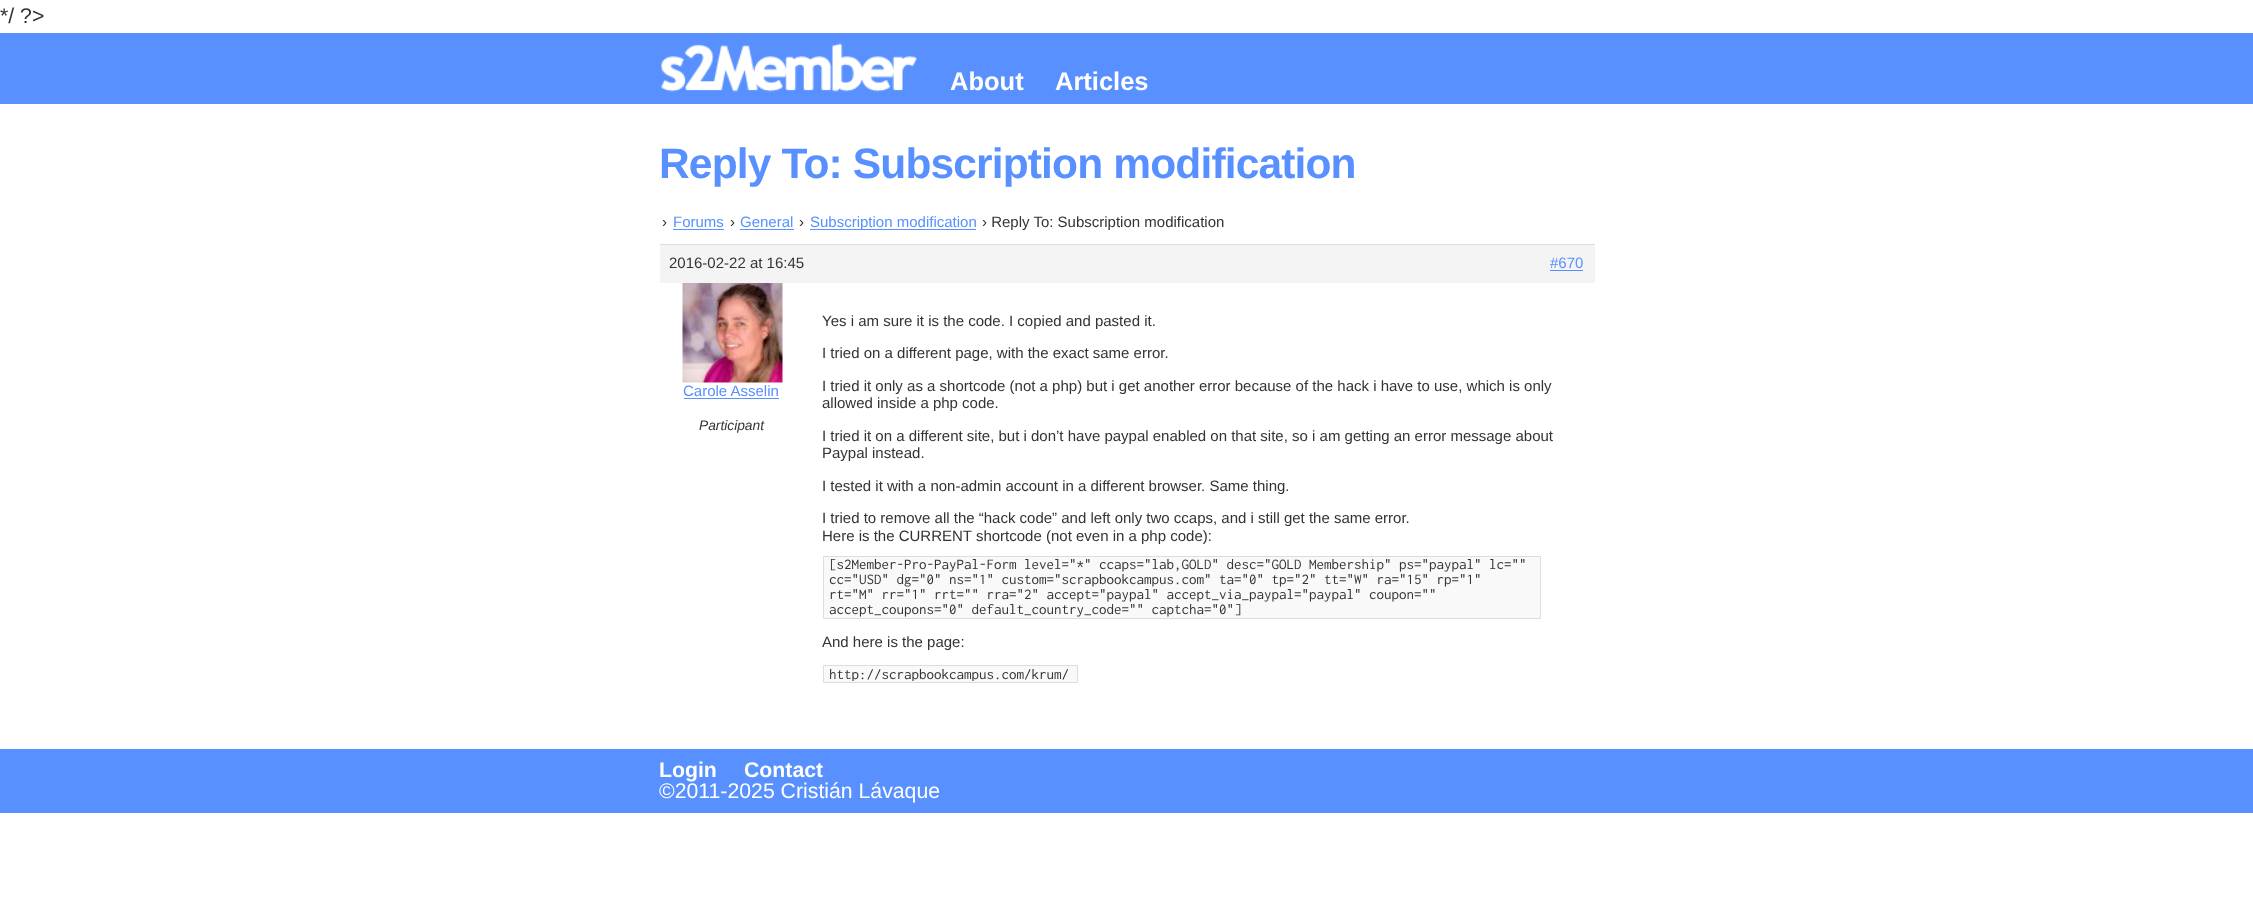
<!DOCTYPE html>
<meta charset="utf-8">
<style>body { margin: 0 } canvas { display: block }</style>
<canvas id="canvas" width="2253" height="919"></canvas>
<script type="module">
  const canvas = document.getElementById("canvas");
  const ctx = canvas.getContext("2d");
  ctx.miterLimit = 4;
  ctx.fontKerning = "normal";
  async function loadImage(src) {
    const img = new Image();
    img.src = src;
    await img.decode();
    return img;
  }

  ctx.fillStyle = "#ffffff";
  ctx.fillRect(0, 0, 2253, 919);
  ctx.font = "21.25px Liberation Sans";
  ctx.fillStyle = "#333333";
  ctx.fillText("*/ ?>", 0, 23);
  ctx.fillStyle = "#5890ff";
  ctx.fillRect(0, 33, 2253, 71);
  ctx.drawImage(await loadImage("img1.png"), 661, 43, 257, 49);
  ctx.font = "bold 25.5px Liberation Sans";
  ctx.fillStyle = "#ffffff";
  ctx.fillText("About", 950, 90);
  ctx.fillText("Articles", 1055, 90);
  ctx.letterSpacing = "-0.85px";
  ctx.font = "bold 42.5px Liberation Sans";
  ctx.fillStyle = "#5890ff";
  ctx.fillText("Reply To: Subscription modification", 659, 178);
  ctx.letterSpacing = "0px";
  ctx.font = "15px Liberation Sans";
  ctx.fillStyle = "#333333";
  ctx.fillText("›", 662, 227);
  ctx.fillStyle = "#5890ff";
  ctx.fillText("Forums", 673, 227);
  ctx.fillRect(673, 229, 51, 1);
  ctx.fillStyle = "#333333";
  ctx.fillText("›", 730, 227);
  ctx.fillStyle = "#5890ff";
  ctx.fillText("General", 740, 227);
  ctx.fillRect(740, 229, 54, 1);
  ctx.fillStyle = "#333333";
  ctx.fillText("›", 799, 227);
  ctx.fillStyle = "#5890ff";
  ctx.fillRect(810, 229, 166, 1);
  ctx.fillText("Subscription modification", 810, 227);
  ctx.fillStyle = "#333333";
  ctx.fillText("› Reply To: Subscription modification", 982, 227);
  ctx.fillStyle = "#f4f4f4";
  ctx.fillRect(660, 245, 935, 38);
  ctx.fillStyle = "#dddddd";
  ctx.fillRect(660, 244, 935, 1);
  ctx.fillStyle = "#333333";
  ctx.fillText("2016-02-22 at 16:45", 669, 268);
  ctx.fillStyle = "#5890ff";
  ctx.fillText("#670", 1550, 268);
  ctx.fillRect(1550, 270, 33, 1);
  ctx.drawImage(await loadImage("img2.png"), 682, 283, 101, 100);
  ctx.fillText("Carole Asselin", 683, 396);
  ctx.fillRect(684, 398, 95, 1);
  ctx.font = "italic 13.75px Liberation Sans";
  ctx.fillStyle = "#333333";
  ctx.fillText("Participant", 699, 430);
  ctx.font = "15px Liberation Sans";
  ctx.fillText("Yes i am sure it is the code. I copied and pasted it.", 822, 326);
  ctx.fillText("I tried on a different page, with the exact same error.", 822, 358);
  ctx.fillText("I tried it only as a shortcode (not a php) but i get another error because of the hack i have to use, which is only", 822, 391);
  ctx.fillText("allowed inside a php code.", 822, 408);
  ctx.fillText("I tried it on a different site, but i don’t have paypal enabled on that site, so i am getting an error message about", 822, 441);
  ctx.fillText("Paypal instead.", 822, 458);
  ctx.fillText("I tested it with a non-admin account in a different browser. Same thing.", 822, 491);
  ctx.fillText("I tried to remove all the “hack code” and left only two ccaps, and i still get the same error.", 822, 523);
  ctx.fillText("Here is the CURRENT shortcode (not even in a php code):", 822, 541);
  ctx.fillStyle = "#f9f9f9";
  ctx.beginPath();
  ctx.rect(823.5, 556.5, 717, 62);
  ctx.fill();
  ctx.strokeStyle = "#dddddd";
  ctx.stroke();
  ctx.font = "15px Inconsolata";
  ctx.fillStyle = "#333333";
  ctx.fillText("[s2Member-Pro-PayPal-Form level=\"*\" ccaps=\"lab,GOLD\" desc=\"GOLD Membership\" ps=\"paypal\" lc=\"\"", 829, 569);
  ctx.fillText("cc=\"USD\" dg=\"0\" ns=\"1\" custom=\"scrapbookcampus.com\" ta=\"0\" tp=\"2\" tt=\"W\" ra=\"15\" rp=\"1\"", 829, 584);
  ctx.fillText("rt=\"M\" rr=\"1\" rrt=\"\" rra=\"2\" accept=\"paypal\" accept_via_paypal=\"paypal\" coupon=\"\"", 829, 599);
  ctx.fillText("accept_coupons=\"0\" default_country_code=\"\" captcha=\"0\"]", 829, 614);
  ctx.font = "15px Liberation Sans";
  ctx.fillText("And here is the page:", 822, 647);
  ctx.fillStyle = "#f9f9f9";
  ctx.beginPath();
  ctx.rect(823.5, 665.5, 254, 17);
  ctx.fill();
  ctx.stroke();
  ctx.save();
  ctx.beginPath();
  ctx.rect(824, 666, 252, 15);
  ctx.clip();
  ctx.font = "15px Inconsolata";
  ctx.fillStyle = "#333333";
  ctx.fillText("http://scrapbookcampus.com/krum/", 829, 679);
  ctx.restore();
  ctx.fillStyle = "#5890ff";
  ctx.fillRect(0, 749, 2253, 64);
  ctx.font = "bold 21.25px Liberation Sans";
  ctx.fillStyle = "#ffffff";
  ctx.fillText("Login", 659, 777);
  ctx.fillText("Contact", 744, 777);
  ctx.font = "21.25px Liberation Sans";
  ctx.fillText("©2011-2025 Cristián Lávaque", 659, 798);
</script>
